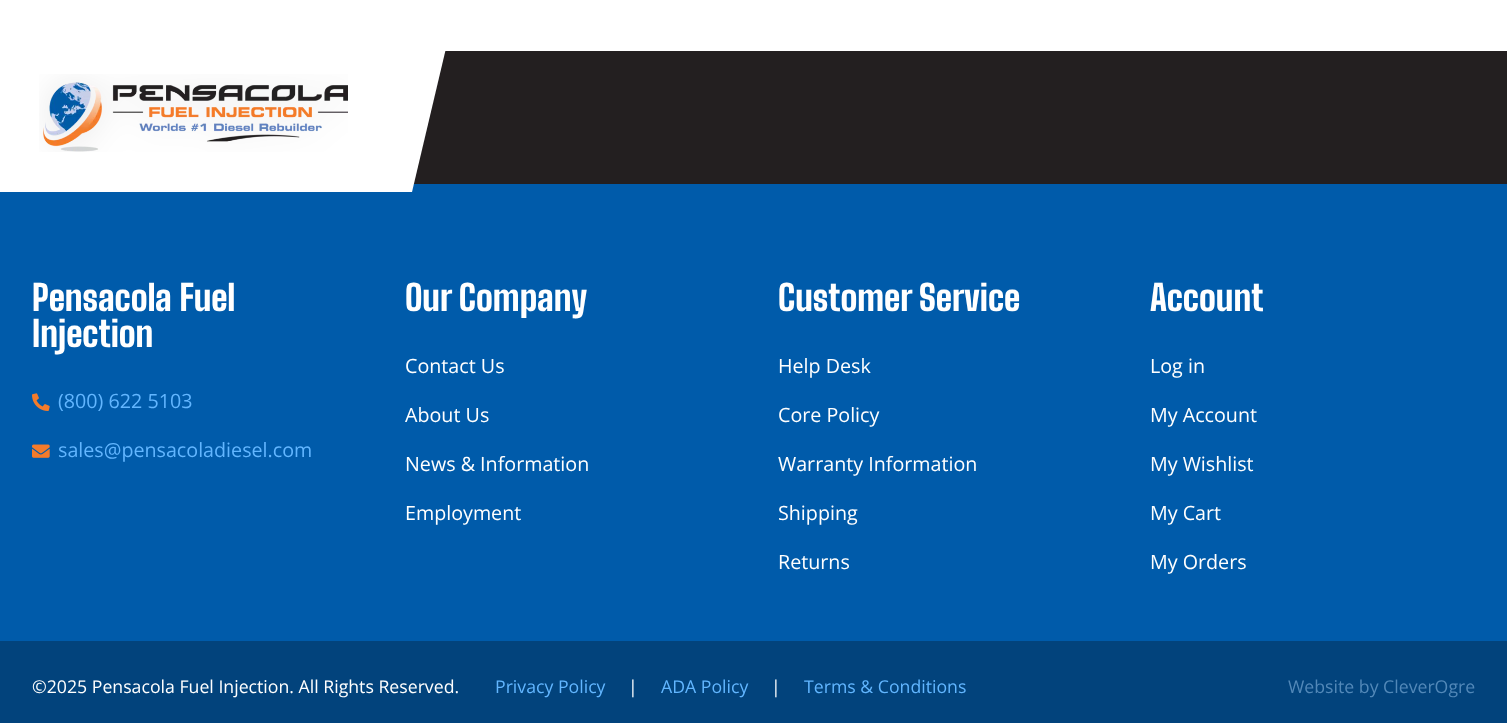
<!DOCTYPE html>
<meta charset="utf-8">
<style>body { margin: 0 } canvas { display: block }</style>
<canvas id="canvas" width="1507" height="723"></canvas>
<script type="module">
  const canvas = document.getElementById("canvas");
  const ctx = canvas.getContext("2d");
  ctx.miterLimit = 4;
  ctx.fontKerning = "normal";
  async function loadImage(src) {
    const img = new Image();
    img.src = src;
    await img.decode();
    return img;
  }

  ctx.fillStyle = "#ffffff";
  ctx.fillRect(0, 0, 1507, 723);
  ctx.fillStyle = "#231f20";
  ctx.fillRect(413, 51, 1094, 133);
  ctx.fillStyle = "#005baa";
  ctx.fillRect(0, 184, 1507, 457);
  ctx.fillStyle = "#ffffff";
  ctx.beginPath();
  ctx.moveTo(0, 43);
  ctx.lineTo(0, 192);
  ctx.lineTo(412, 192);
  ctx.lineTo(447, 44);
  ctx.lineTo(447, 43);
  ctx.closePath();
  ctx.fill();
  ctx.drawImage(await loadImage("img1.png"), 39, 74, 309, 78);
  ctx.font = "800 35.25px Big Shoulders";
  ctx.fillText("Pensacola Fuel", 32, 311);
  ctx.fillText("Injection", 32, 347);
  ctx.drawImage(await loadImage("img2.png"), 32, 393, 18, 18);
  ctx.font = "19.7px Open Sans";
  ctx.fillStyle = "#62b6ff";
  ctx.fillText("(800) 622 5103", 58, 408);
  ctx.drawImage(await loadImage("img3.png"), 32, 444, 18, 14);
  ctx.fillText("sales@pensacoladiesel.com", 58, 457);
  ctx.font = "800 35.25px Big Shoulders";
  ctx.fillStyle = "#ffffff";
  ctx.fillText("Our Company", 405, 311);
  ctx.font = "19.7px Open Sans";
  ctx.fillText("Contact Us", 405, 373);
  ctx.fillText("About Us", 405, 422);
  ctx.fillText("News & Information", 405, 471);
  ctx.fillText("Employment", 405, 520);
  ctx.font = "800 35.25px Big Shoulders";
  ctx.fillText("Customer Service", 778, 311);
  ctx.font = "19.7px Open Sans";
  ctx.fillText("Help Desk", 778, 373);
  ctx.fillText("Core Policy", 778, 422);
  ctx.fillText("Warranty Information", 778, 471);
  ctx.fillText("Shipping", 778, 520);
  ctx.fillText("Returns", 778, 569);
  ctx.font = "800 35.25px Big Shoulders";
  ctx.fillText("Account", 1150, 311);
  ctx.font = "19.7px Open Sans";
  ctx.fillText("Log in", 1150, 373);
  ctx.fillText("My Account", 1150, 422);
  ctx.fillText("My Wishlist", 1150, 471);
  ctx.fillText("My Cart", 1150, 520);
  ctx.fillText("My Orders", 1150, 569);
  ctx.fillStyle = "#02437c";
  ctx.fillRect(0, 641, 1507, 82);
  ctx.font = "17.7px Open Sans";
  ctx.fillStyle = "#ffffff";
  ctx.fillText("©2025 Pensacola Fuel Injection. All Rights Reserved.", 32, 693);
  ctx.fillStyle = "#62b6ff";
  ctx.fillText("Privacy Policy", 495, 693);
  ctx.fillStyle = "#ffffff";
  ctx.fillText("|", 628, 693);
  ctx.fillStyle = "#62b6ff";
  ctx.fillText("ADA Policy", 661, 693);
  ctx.fillStyle = "#ffffff";
  ctx.fillText("|", 771, 693);
  ctx.fillStyle = "#62b6ff";
  ctx.fillText("Terms & Conditions", 804, 693);
  ctx.fillStyle = "#5288b8";
  ctx.fillText("Website by CleverOgre", 1288, 693);
</script>
